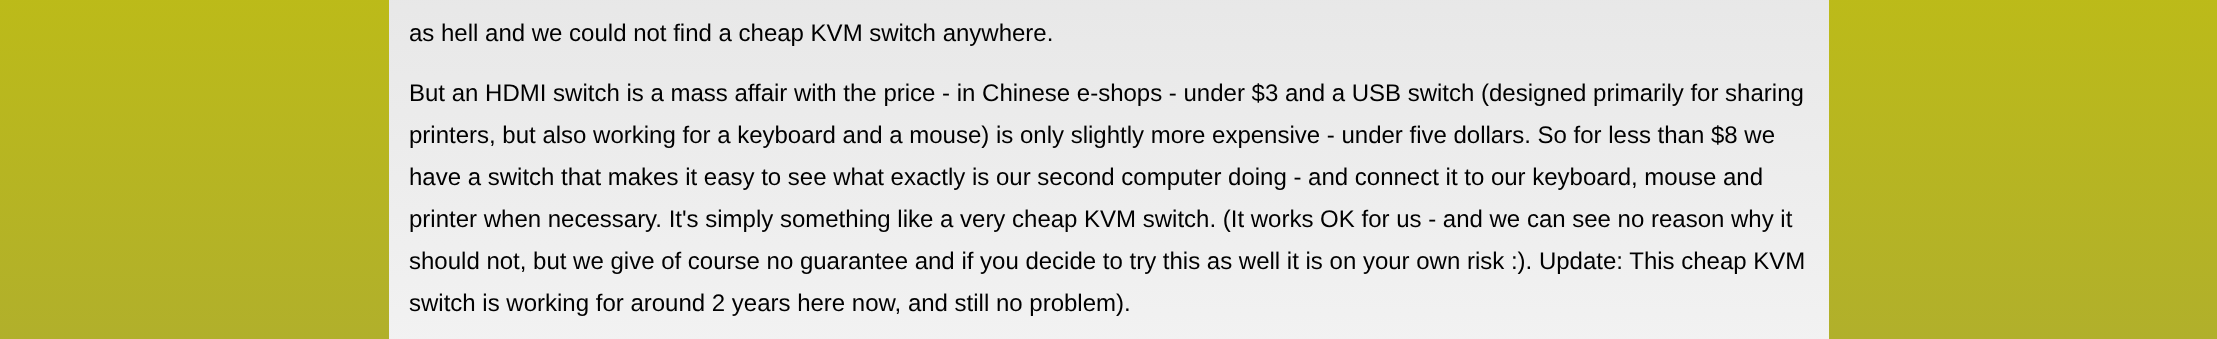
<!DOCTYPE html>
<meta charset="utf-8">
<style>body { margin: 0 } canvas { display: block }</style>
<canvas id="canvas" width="2217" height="339"></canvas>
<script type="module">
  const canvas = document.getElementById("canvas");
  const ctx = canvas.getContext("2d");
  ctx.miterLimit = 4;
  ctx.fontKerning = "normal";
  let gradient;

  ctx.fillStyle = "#ffffff";
  ctx.fillRect(0, 0, 2217, 339);
  gradient = ctx.createLinearGradient(1109, -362, 1109, 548);
  gradient.addColorStop(0, "#c8c606");
  gradient.addColorStop(1, "#aaa936");
  ctx.fillStyle = gradient;
  ctx.fillRect(0, 0, 2217, 339);
  gradient = ctx.createLinearGradient(1116, -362, 1116, 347);
  gradient.addColorStop(0, "#dddddd");
  gradient.addColorStop(1, "#f2f2f2");
  ctx.fillStyle = gradient;
  ctx.fillRect(389, 0, 1440, 339);
  ctx.font = "24px Liberation Sans";
  ctx.fillStyle = "#000000";
  ctx.fillText("as hell and we could not find a cheap KVM switch anywhere.", 409, 41);
  ctx.fillText("But an HDMI switch is a mass affair with the price - in Chinese e-shops - under $3 and a USB switch (designed primarily for sharing", 409, 101);
  ctx.fillText("printers, but also working for a keyboard and a mouse) is only slightly more expensive - under five dollars. So for less than $8 we", 409, 143);
  ctx.fillText("have a switch that makes it easy to see what exactly is our second computer doing - and connect it to our keyboard, mouse and", 409, 185);
  ctx.fillText("printer when necessary. It's simply something like a very cheap KVM switch. (It works OK for us - and we can see no reason why it", 409, 227);
  ctx.fillText("should not, but we give of course no guarantee and if you decide to try this as well it is on your own risk :). Update: This cheap KVM", 409, 269);
  ctx.fillText("switch is working for around 2 years here now, and still no problem).", 409, 311);
</script>
